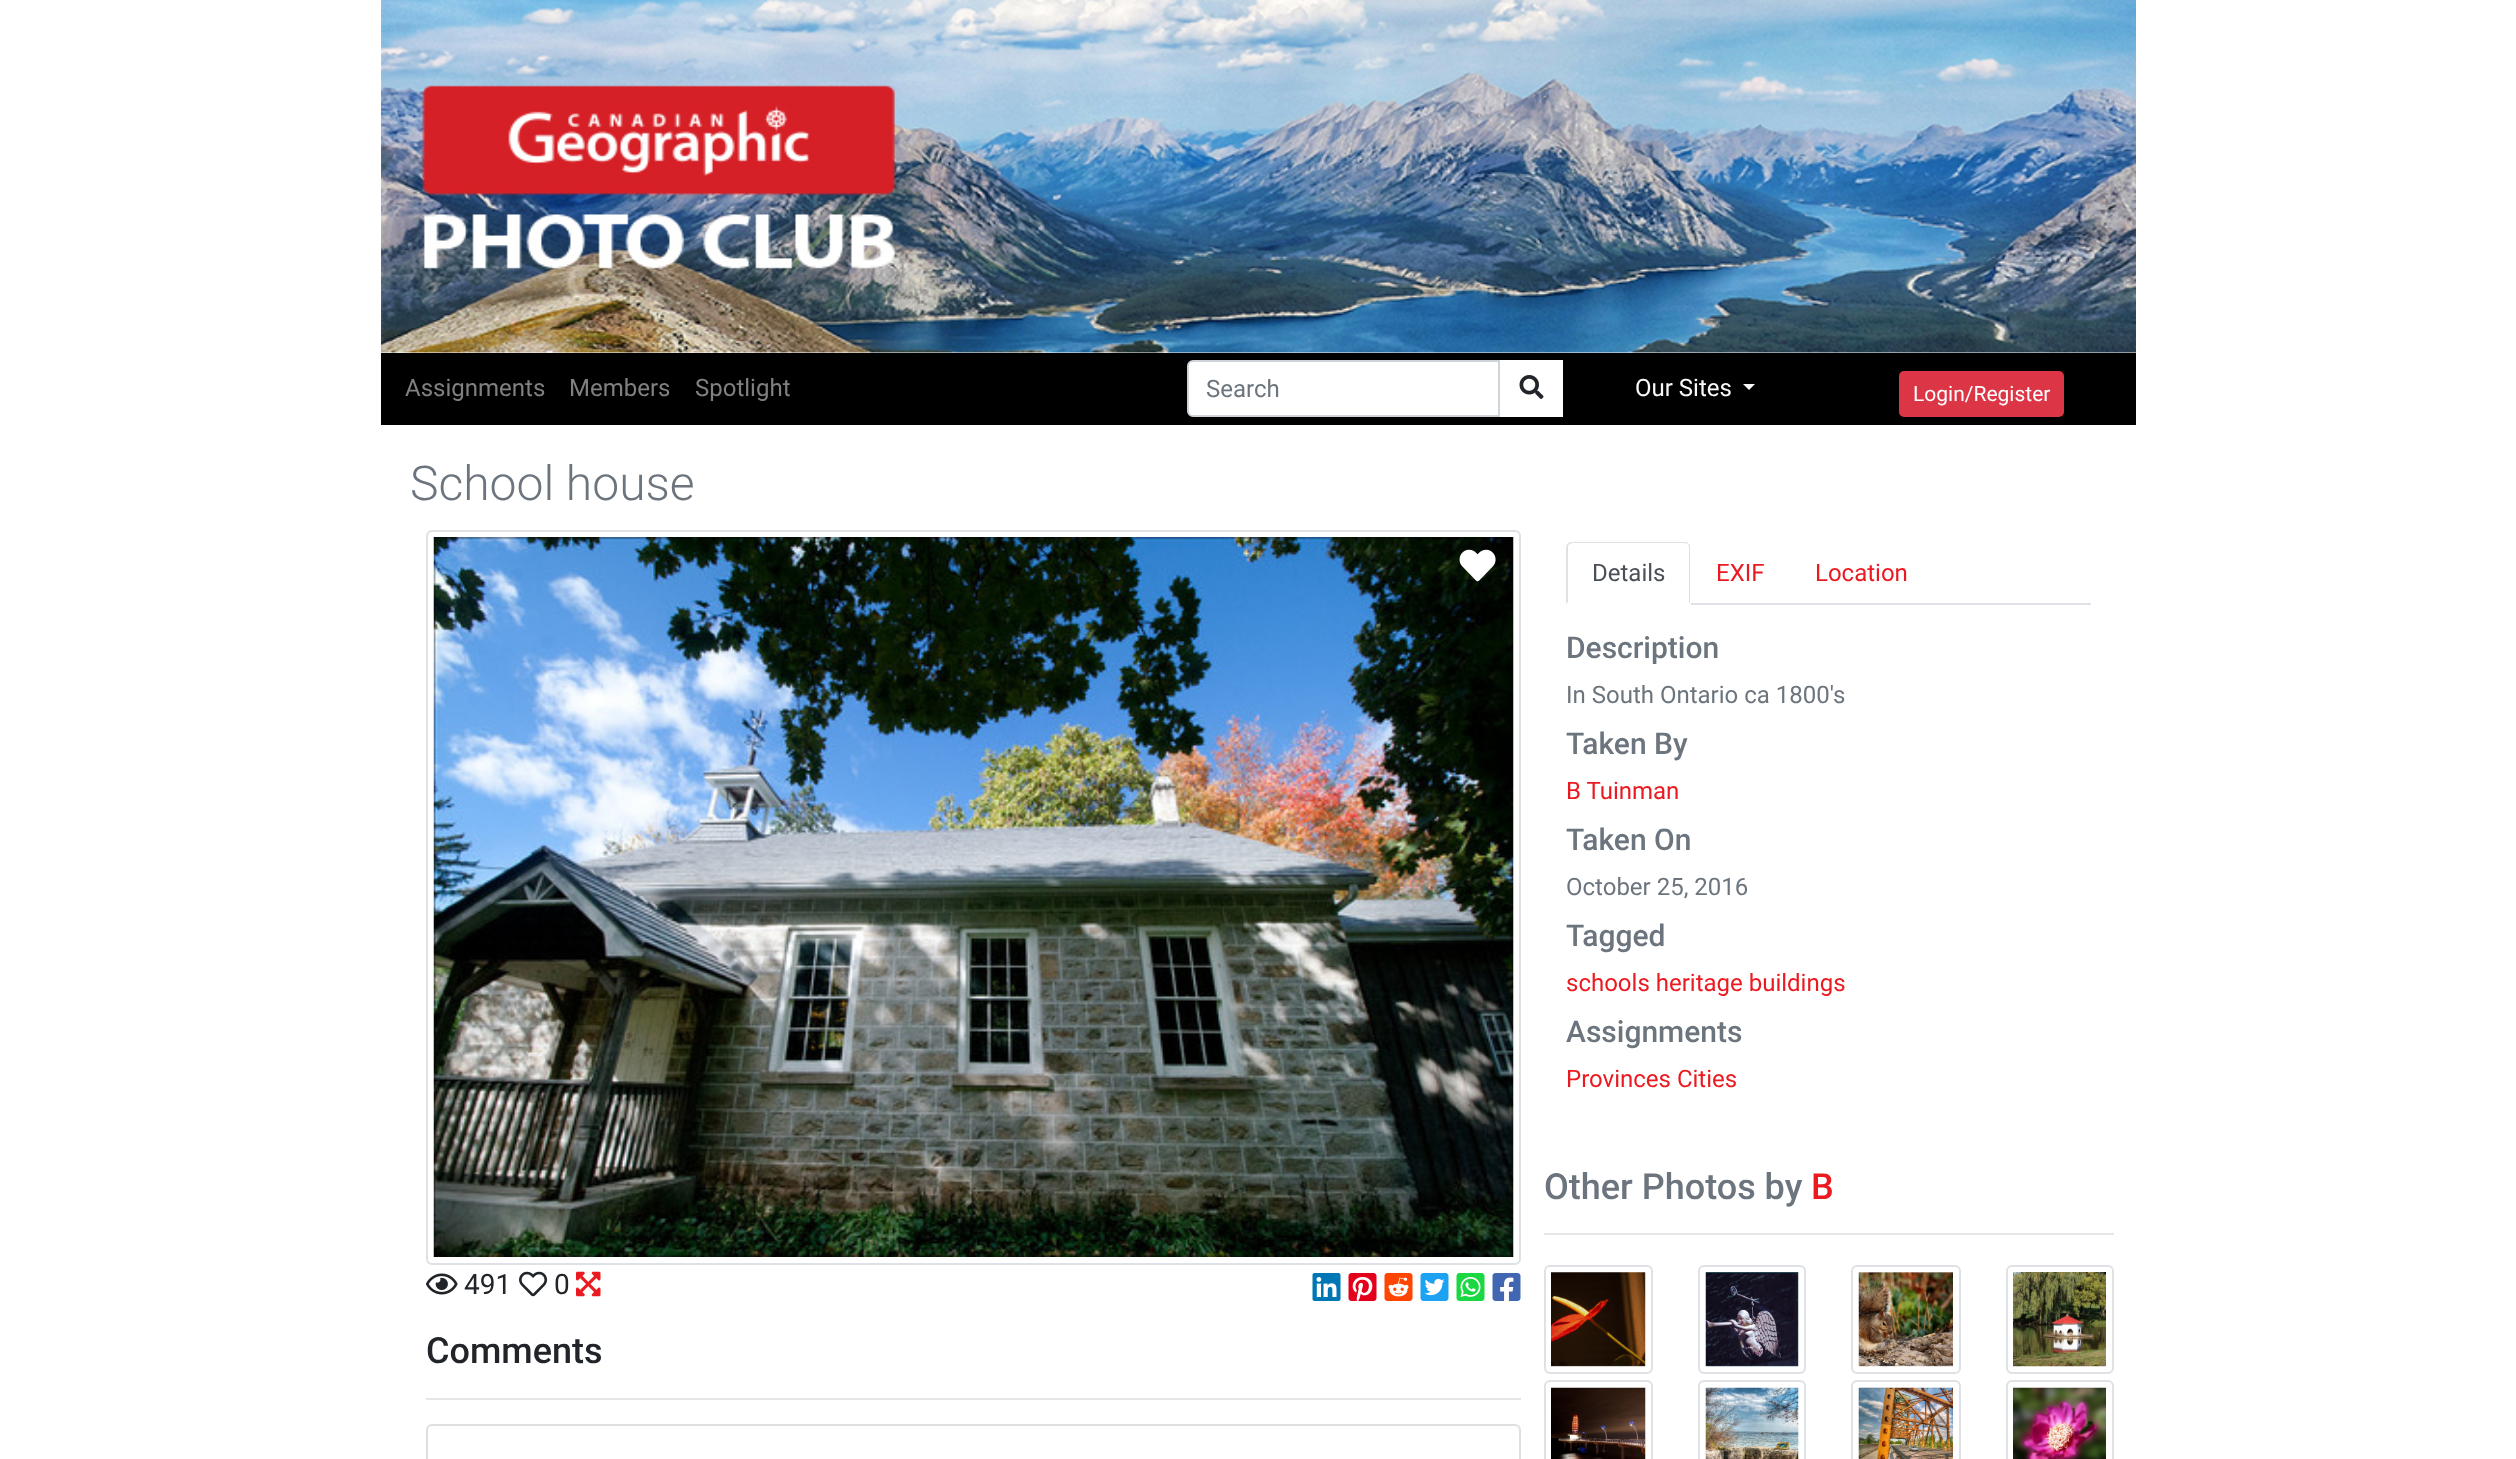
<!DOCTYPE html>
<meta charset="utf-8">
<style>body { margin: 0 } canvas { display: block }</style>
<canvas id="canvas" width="2516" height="1459"></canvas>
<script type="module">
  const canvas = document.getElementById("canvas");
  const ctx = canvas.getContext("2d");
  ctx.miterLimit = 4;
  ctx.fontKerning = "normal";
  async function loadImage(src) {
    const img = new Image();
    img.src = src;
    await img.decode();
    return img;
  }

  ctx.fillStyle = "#ffffff";
  ctx.fillRect(0, 0, 2516, 1459);
  ctx.drawImage(await loadImage("img1.png"), 381, 0, 1755, 353);
  ctx.fillStyle = "#000000";
  ctx.fillRect(381, 353, 1755, 72);
  ctx.font = "24px Roboto";
  ctx.fillStyle = "#808080";
  ctx.fillText("Assignments", 405, 396);
  ctx.fillText("Members", 569, 396);
  ctx.fillText("Spotlight", 695, 396);
  ctx.fillStyle = "#ffffff";
  ctx.beginPath();
  ctx.roundRect(1188, 361, 311, 55, [5, 0, 0, 5]);
  ctx.fill();
  ctx.strokeStyle = "#ced4da";
  ctx.lineWidth = 2;
  ctx.stroke();
  ctx.fillStyle = "#6c757d";
  ctx.fillText("Search", 1206, 397);
  ctx.fillStyle = "#ffffff";
  ctx.fillRect(1500, 360, 63, 57);
  ctx.drawImage(await loadImage("img2.png"), 1519, 375, 25, 24);
  ctx.fillStyle = "#f8f9fa";
  ctx.fillText("Our Sites", 1635, 396);
  ctx.beginPath();
  ctx.moveTo(1743, 384);
  ctx.lineTo(1755, 384);
  ctx.lineTo(1749, 390);
  ctx.closePath();
  ctx.fill();
  ctx.fillStyle = "#dc3545";
  ctx.beginPath();
  ctx.roundRect(1900, 372, 163, 44, 4);
  ctx.fill();
  ctx.strokeStyle = "#dc3545";
  ctx.stroke();
  ctx.font = "21px Roboto";
  ctx.fillStyle = "#ffffff";
  ctx.fillText("Login/Register", 1913, 401);
  ctx.font = "300 48px Roboto";
  ctx.fillStyle = "#6c757d";
  ctx.fillText("School house", 410, 500);
  ctx.fillStyle = "#dee2e6";
  ctx.fillRect(1691, 603, 400, 2);
  ctx.beginPath();
  ctx.moveTo(1572, 542);
  ctx.bezierCurveTo(1571, 542, 1569, 542, 1568, 543);
  ctx.lineTo(1569, 545);
  ctx.bezierCurveTo(1570, 544, 1571, 543, 1572, 543);
  ctx.lineTo(1684, 543);
  ctx.bezierCurveTo(1686, 543, 1687, 544, 1688, 544);
  ctx.bezierCurveTo(1688, 542, 1686, 542, 1684, 542);
  ctx.closePath();
  ctx.fill();
  ctx.beginPath();
  ctx.moveTo(1690, 604);
  ctx.lineTo(1690, 548);
  ctx.bezierCurveTo(1690, 546, 1690, 544, 1688, 544);
  ctx.bezierCurveTo(1688, 545, 1689, 546, 1689, 548);
  ctx.lineTo(1689, 603);
  ctx.closePath();
  ctx.fill();
  ctx.fillStyle = "#ffffff";
  ctx.beginPath();
  ctx.moveTo(1690, 604);
  ctx.lineTo(1689, 603);
  ctx.lineTo(1568, 603);
  ctx.lineTo(1568, 602);
  ctx.lineTo(1566, 604);
  ctx.closePath();
  ctx.fill();
  ctx.fillStyle = "#dee2e6";
  ctx.beginPath();
  ctx.moveTo(1566, 548);
  ctx.lineTo(1566, 604);
  ctx.lineTo(1568, 602);
  ctx.lineTo(1568, 548);
  ctx.bezierCurveTo(1568, 547, 1568, 545, 1569, 545);
  ctx.lineTo(1568, 543);
  ctx.bezierCurveTo(1567, 544, 1566, 546, 1566, 548);
  ctx.closePath();
  ctx.fill();
  ctx.font = "24px Roboto";
  ctx.fillStyle = "#495057";
  ctx.fillText("Details", 1592, 581);
  ctx.fillStyle = "#eb1a21";
  ctx.fillText("EXIF", 1716, 581);
  ctx.fillText("Location", 1815, 581);
  ctx.font = "500 30px Roboto";
  ctx.fillStyle = "#6c757d";
  ctx.fillText("Description", 1566, 658);
  ctx.font = "24px Roboto";
  ctx.fillText("In South Ontario ca 1800's", 1566, 703);
  ctx.font = "500 30px Roboto";
  ctx.fillText("Taken By", 1566, 754);
  ctx.font = "24px Roboto";
  ctx.fillStyle = "#eb1a21";
  ctx.fillText("B Tuinman", 1566, 799);
  ctx.font = "500 30px Roboto";
  ctx.fillStyle = "#6c757d";
  ctx.fillText("Taken On", 1566, 850);
  ctx.font = "24px Roboto";
  ctx.fillText("October 25, 2016", 1566, 895);
  ctx.font = "500 30px Roboto";
  ctx.fillText("Tagged", 1566, 946);
  ctx.font = "24px Roboto";
  ctx.fillStyle = "#eb1a21";
  ctx.fillText("schools heritage buildings", 1566, 991);
  ctx.font = "500 30px Roboto";
  ctx.fillStyle = "#6c757d";
  ctx.fillText("Assignments", 1566, 1042);
  ctx.font = "24px Roboto";
  ctx.fillStyle = "#eb1a21";
  ctx.fillText("Provinces Cities", 1566, 1087);
  ctx.font = "500 36px Roboto";
  ctx.fillStyle = "#6c757d";
  ctx.fillText("Other Photos by", 1544, 1199);
  ctx.fillStyle = "#eb1a21";
  ctx.fillText("B", 1811, 1199);
  ctx.fillStyle = "#e6e6e6";
  ctx.fillRect(1544, 1233, 570, 2);
  ctx.beginPath();
  ctx.roundRect(1545, 1266, 107, 107, 5);
  ctx.strokeStyle = "#dee2e6";
  ctx.stroke();
  ctx.drawImage(await loadImage("img3.png"), 1551, 1272, 95, 95);
  ctx.beginPath();
  ctx.roundRect(1699, 1266, 106, 107, 5);
  ctx.stroke();
  ctx.drawImage(await loadImage("img4.png"), 1705, 1272, 94, 95);
  ctx.beginPath();
  ctx.roundRect(1852, 1266, 108, 107, 5);
  ctx.stroke();
  ctx.drawImage(await loadImage("img5.png"), 1858, 1272, 95, 95);
  ctx.beginPath();
  ctx.roundRect(2007, 1266, 106, 107, 5);
  ctx.stroke();
  ctx.drawImage(await loadImage("img6.png"), 2013, 1272, 93, 95);
  ctx.beginPath();
  ctx.roundRect(1545, 1381, 107, 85, 5);
  ctx.stroke();
  ctx.drawImage(await loadImage("img7.png"), 1551, 1387, 95, 72);
  ctx.beginPath();
  ctx.roundRect(1699, 1381, 106, 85, 5);
  ctx.stroke();
  ctx.drawImage(await loadImage("img8.png"), 1705, 1387, 94, 72);
  ctx.beginPath();
  ctx.roundRect(1852, 1381, 108, 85, 5);
  ctx.stroke();
  ctx.drawImage(await loadImage("img9.png"), 1858, 1387, 95, 72);
  ctx.beginPath();
  ctx.roundRect(2007, 1381, 106, 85, 5);
  ctx.stroke();
  ctx.drawImage(await loadImage("img10.png"), 2013, 1387, 93, 72);
  ctx.beginPath();
  ctx.roundRect(427, 531, 1093, 733, 5);
  ctx.stroke();
  ctx.drawImage(await loadImage("img11.png"), 433, 537, 1081, 720);
  ctx.drawImage(await loadImage("img12.png"), 1459, 549, 37, 33);
  ctx.drawImage(await loadImage("img13.png"), 426, 1273, 32, 22);
  ctx.font = "28px Roboto";
  ctx.fillStyle = "#212529";
  ctx.fillText("491", 464, 1294);
  ctx.drawImage(await loadImage("img14.png"), 519, 1271, 29, 26);
  ctx.fillText("0", 554, 1294);
  ctx.drawImage(await loadImage("img15.png"), 576, 1271, 25, 26);
  ctx.drawImage(await loadImage("img16.png"), 1312, 1273, 29, 28);
  ctx.drawImage(await loadImage("img17.png"), 1348, 1273, 29, 28);
  ctx.drawImage(await loadImage("img18.png"), 1384, 1273, 29, 28);
  ctx.drawImage(await loadImage("img19.png"), 1420, 1273, 29, 28);
  ctx.drawImage(await loadImage("img20.png"), 1456, 1273, 29, 28);
  ctx.drawImage(await loadImage("img21.png"), 1492, 1273, 29, 28);
  ctx.font = "500 36px Roboto";
  ctx.fillText("Comments", 426, 1363);
  ctx.fillStyle = "#e6e6e6";
  ctx.fillRect(426, 1398, 1095, 2);
  ctx.beginPath();
  ctx.roundRect(427, 1425, 1093, 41, 5);
  ctx.strokeStyle = "#dfdfdf";
  ctx.stroke();
</script>
